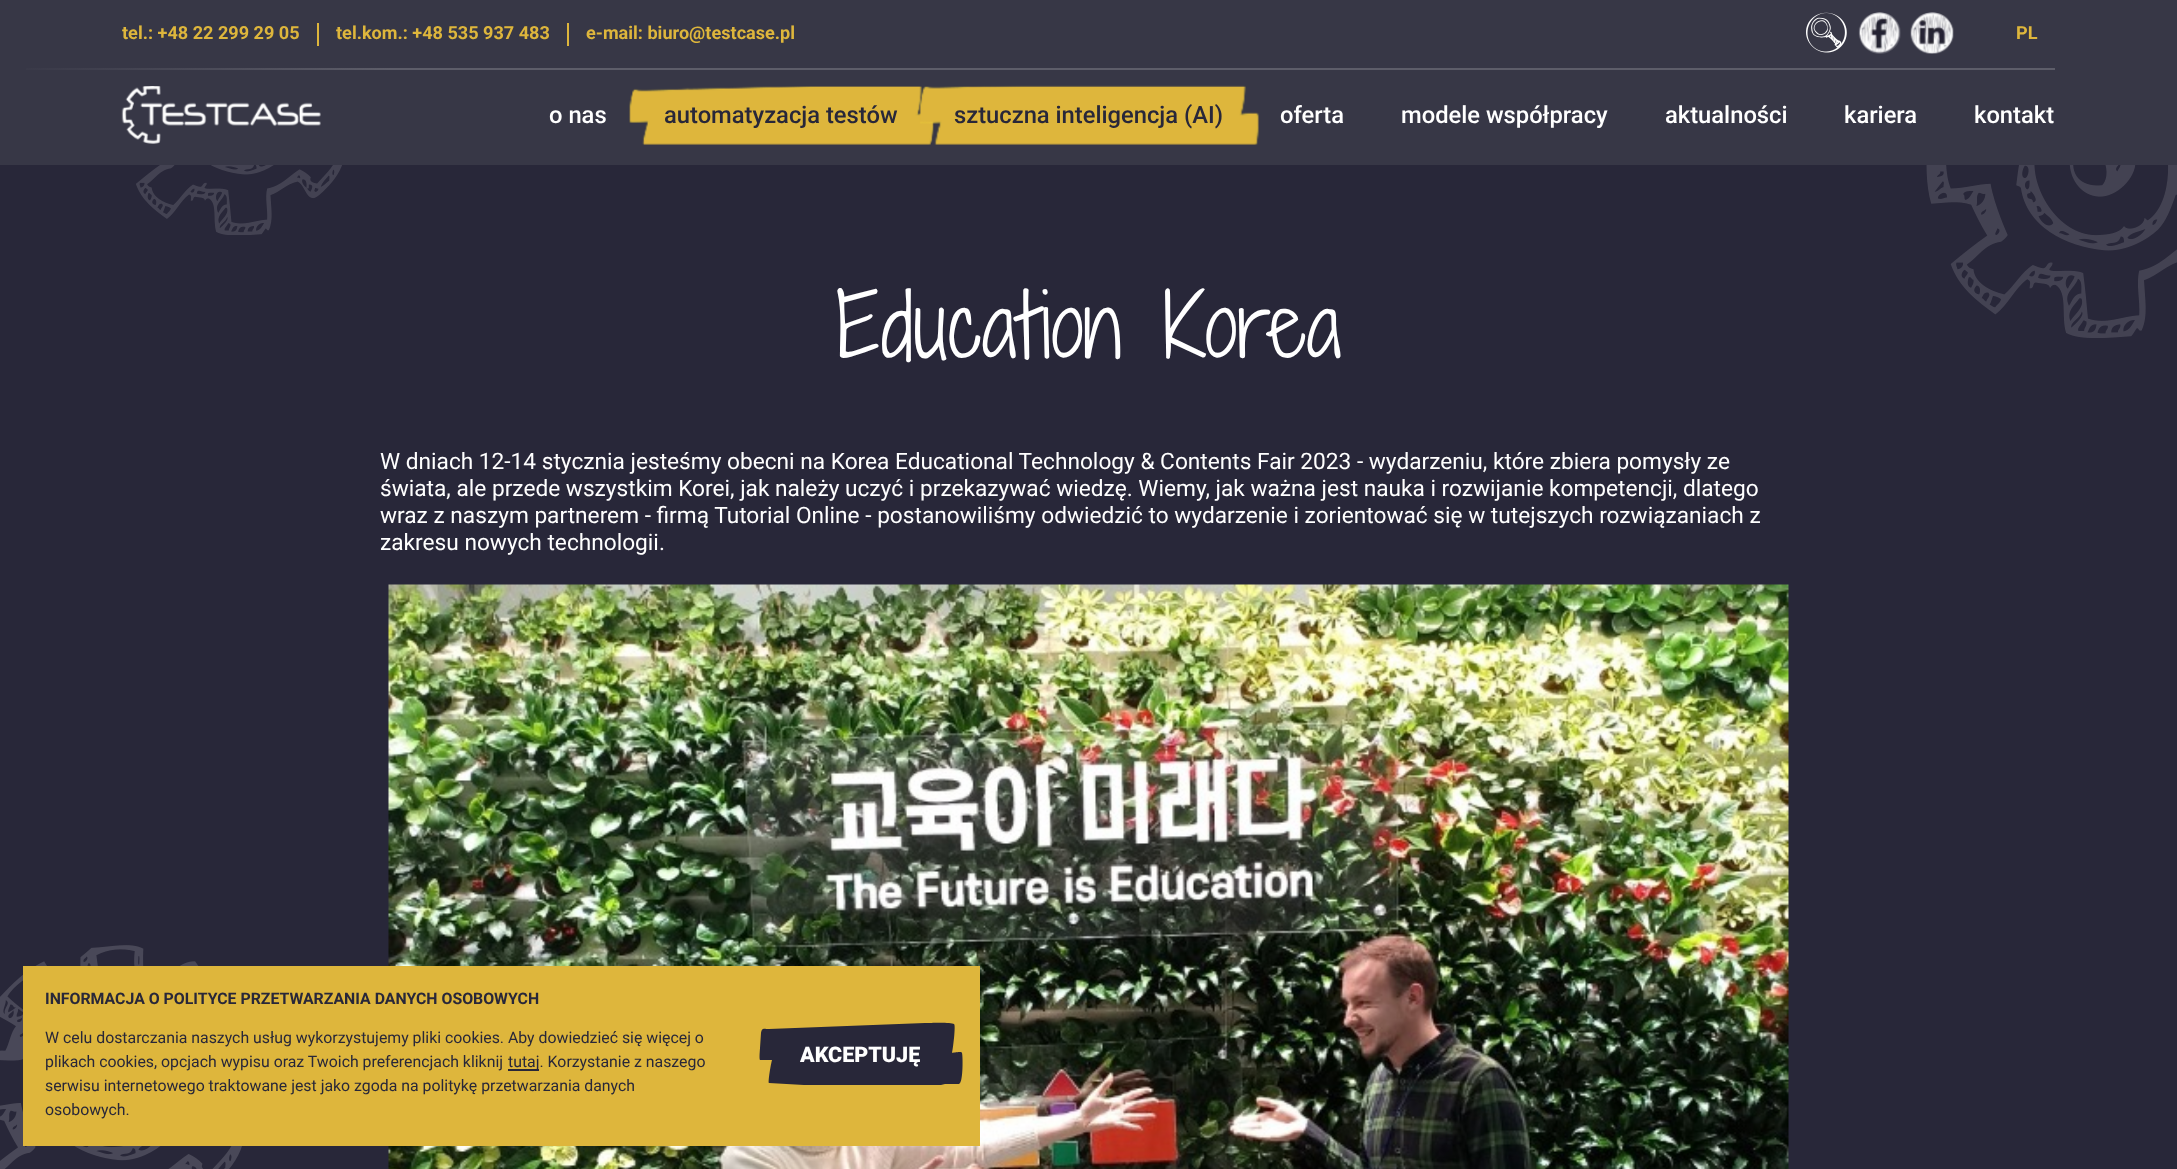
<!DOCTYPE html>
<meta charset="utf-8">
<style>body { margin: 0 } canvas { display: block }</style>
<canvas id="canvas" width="2177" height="1169"></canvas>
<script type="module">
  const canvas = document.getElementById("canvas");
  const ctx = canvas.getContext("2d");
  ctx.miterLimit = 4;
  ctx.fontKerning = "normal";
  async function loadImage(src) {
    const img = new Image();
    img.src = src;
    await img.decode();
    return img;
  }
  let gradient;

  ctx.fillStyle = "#282739";
  ctx.fillRect(0, 0, 2177, 1169);
  ctx.fillStyle = "#373746";
  ctx.fillRect(0, 0, 2177, 165);
  ctx.fillStyle = "#deb63c";
  ctx.fillRect(317, 23, 2, 23);
  ctx.font = "bold 18.1px Roboto";
  ctx.fillText("tel.: +48 22 299 29 05", 122, 39);
  ctx.fillRect(567, 23, 2, 23);
  ctx.fillText("tel.kom.: +48 535 937 483", 336, 39);
  ctx.fillText("e-mail: biuro@testcase.pl", 586, 39);
  ctx.drawImage(await loadImage("img1.png"), 1806, 12, 41, 41);
  ctx.fillStyle = "#4b4b59";
  ctx.beginPath();
  ctx.arc(1880, 33, 21, 0, Math.PI * 2);
  ctx.fill();
  ctx.drawImage(await loadImage("img2.png"), 1858, 12, 42, 42);
  ctx.beginPath();
  ctx.arc(1932, 33, 21, 0, Math.PI * 2);
  ctx.fill();
  ctx.drawImage(await loadImage("img3.png"), 1910, 12, 44, 42);
  ctx.fillStyle = "#deb63c";
  ctx.fillText("PL", 2016, 39);
  gradient = ctx.createLinearGradient(0, 69, 2055, 69);
  gradient.addColorStop(0, "#373746");
  gradient.addColorStop(0.19, "#5d5d69");
  ctx.fillStyle = gradient;
  ctx.fillRect(26, 68, 2029, 2);
  ctx.drawImage(await loadImage("img4.png"), 121, 86, 200, 58);
  ctx.font = "500 23.75px Roboto";
  ctx.fillStyle = "#ffffff";
  ctx.fillText("o nas", 549, 123);
  ctx.drawImage(await loadImage("img5.png"), 629, 86, 305, 59);
  ctx.fillStyle = "#282739";
  ctx.fillText("automatyzacja testów", 664, 123);
  ctx.drawImage(await loadImage("img6.png"), 919, 85, 340, 60);
  ctx.fillText("sztuczna inteligencja (AI)", 954, 123);
  ctx.fillStyle = "#ffffff";
  ctx.fillText("oferta", 1280, 123);
  ctx.fillText("modele współpracy", 1401, 123);
  ctx.fillText("aktualności", 1665, 123);
  ctx.fillText("kariera", 1844, 123);
  ctx.fillText("kontakt", 1974, 123);
  ctx.drawImage(await loadImage("img7.png"), 136, 165, 206, 70);
  ctx.drawImage(await loadImage("img8.png"), 1926, 165, 251, 173);
  ctx.drawImage(await loadImage("img9.png"), 0, 945, 242, 224);
  ctx.font = "300 84px Shadows Into Light Two";
  ctx.fillText("Education Korea", 836, 358);
  ctx.font = "22.68px Roboto";
  ctx.fillText("W dniach 12-14 stycznia jesteśmy obecni na Korea Educational Technology & Contents Fair 2023 - wydarzeniu, które zbiera pomysły ze", 380, 469);
  ctx.fillText("świata, ale przede wszystkim Korei, jak należy uczyć i przekazywać wiedzę. Wiemy, jak ważna jest nauka i rozwijanie kompetencji, dlatego", 380, 496);
  ctx.fillText("wraz z naszym partnerem - firmą Tutorial Online - postanowiliśmy odwiedzić to wydarzenie i zorientować się w tutejszych rozwiązaniach z", 380, 523);
  ctx.fillText("zakresu nowych technologii.", 380, 550);
  ctx.drawImage(await loadImage("img10.png"), 388, 584, 1401, 585);
  ctx.fillStyle = "#deb63c";
  ctx.fillRect(23, 966, 957, 180);
  ctx.font = "bold 15.85px Roboto";
  ctx.fillStyle = "#282739";
  ctx.fillText("INFORMACJA O POLITYCE PRZETWARZANIA DANYCH OSOBOWYCH", 45, 1004);
  ctx.font = "15.85px Roboto";
  ctx.fillText("W celu dostarczania naszych usług wykorzystujemy pliki cookies. Aby dowiedzieć się więcej o", 45, 1043);
  ctx.fillText("plikach cookies, opcjach wypisu oraz Twoich preferencjach kliknij", 45, 1067);
  ctx.fillRect(508, 1069, 31, 2);
  ctx.fillText("tutaj. Korzystanie z naszego", 508, 1067);
  ctx.fillText("serwisu internetowego traktowane jest jako zgoda na politykę przetwarzania danych", 45, 1091);
  ctx.fillText("osobowych.", 45, 1115);
  ctx.beginPath();
  ctx.moveTo(962, 1053);
  ctx.bezierCurveTo(962, 1051, 953, 1053, 952, 1053);
  ctx.bezierCurveTo(953, 1049, 956, 1025, 954, 1024);
  ctx.bezierCurveTo(951, 1022, 930, 1023, 925, 1023);
  ctx.lineTo(769, 1029);
  ctx.bezierCurveTo(764, 1029, 762, 1027, 761, 1033);
  ctx.lineTo(760, 1048);
  ctx.bezierCurveTo(760, 1049, 759, 1059, 760, 1060);
  ctx.lineTo(772, 1060);
  ctx.bezierCurveTo(770, 1068, 768, 1083, 769, 1083);
  ctx.lineTo(804, 1085);
  ctx.lineTo(876, 1085);
  ctx.lineTo(941, 1085);
  ctx.lineTo(945, 1084);
  ctx.lineTo(959, 1084);
  ctx.lineTo(960, 1083);
  ctx.bezierCurveTo(963, 1080, 963, 1057, 962, 1053);
  ctx.closePath();
  ctx.fill();
  ctx.font = "900 21.5px Roboto";
  ctx.fillStyle = "#ffffff";
  ctx.fillText("AKCEPTUJĘ", 800, 1062);
</script>
